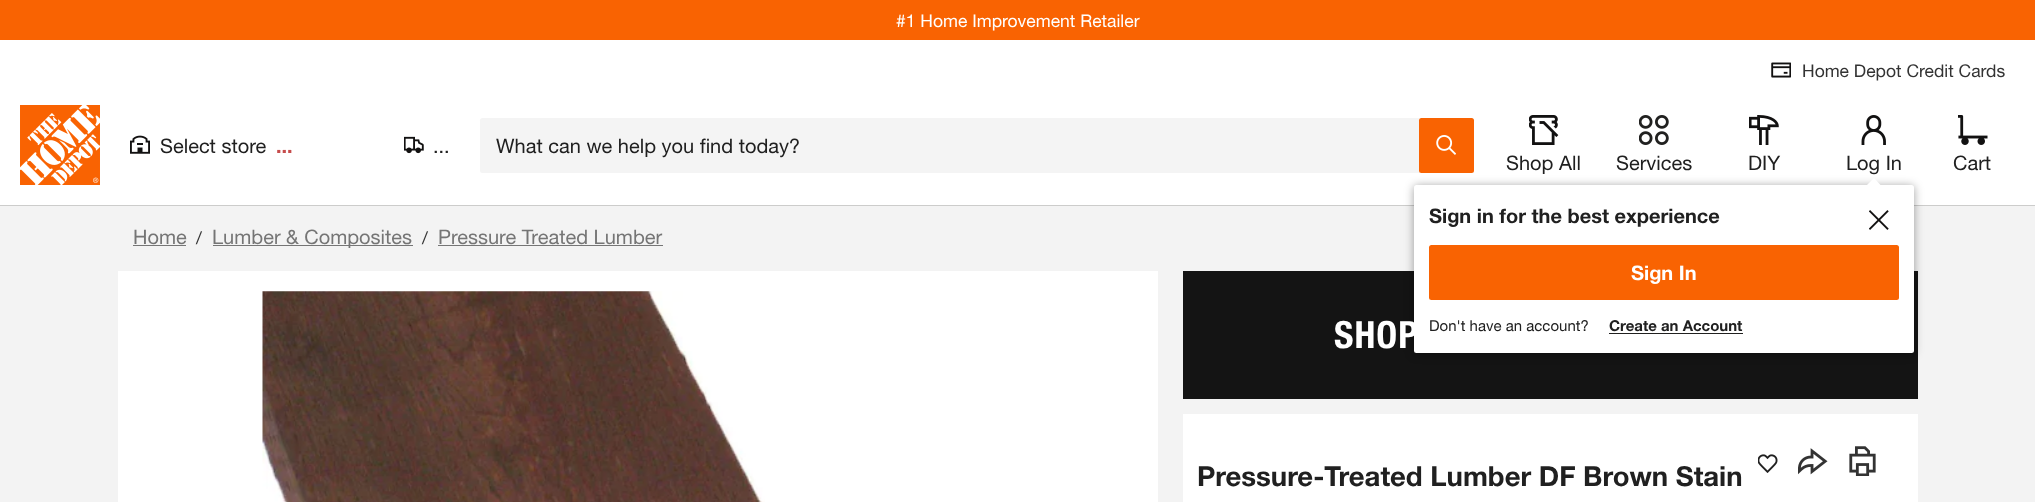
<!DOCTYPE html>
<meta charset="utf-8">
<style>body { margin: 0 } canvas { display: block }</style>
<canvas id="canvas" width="2035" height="502"></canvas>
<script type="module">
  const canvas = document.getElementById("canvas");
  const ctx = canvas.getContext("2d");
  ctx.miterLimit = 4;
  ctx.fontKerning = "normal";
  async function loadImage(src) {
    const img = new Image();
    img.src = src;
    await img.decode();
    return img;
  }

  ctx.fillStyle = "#ffffff";
  ctx.fillRect(0, 0, 2035, 502);
  ctx.fillStyle = "#f96302";
  ctx.fillRect(0, 0, 2035, 40);
  ctx.font = "17.5px 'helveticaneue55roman'";
  ctx.fillStyle = "#ffffff";
  ctx.fillText("#1 Home Improvement Retailer", 896, 27);
  ctx.fillStyle = "#cccccb";
  ctx.fillRect(0, 205, 2035, 1);
  ctx.drawImage(await loadImage("img1.png"), 1771, 62, 20, 16);
  ctx.fillStyle = "#333333";
  ctx.fillText("Home Depot Credit Cards", 1802, 77);
  ctx.drawImage(await loadImage("img2.png"), 20, 105, 80, 80);
  ctx.drawImage(await loadImage("img3.png"), 130, 135, 20, 19);
  ctx.font = "20px 'helveticaneue55roman'";
  ctx.fillStyle = "#202020";
  ctx.fillText("Select store", 160, 153);
  ctx.font = "bold 20px 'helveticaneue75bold'";
  ctx.fillStyle = "#c64c4c";
  ctx.fillText("...", 276, 153);
  ctx.drawImage(await loadImage("img4.png"), 404, 136, 20, 18);
  ctx.font = "20px 'helveticaneue55roman'";
  ctx.fillStyle = "#202020";
  ctx.fillText("...", 433, 153);
  ctx.fillStyle = "#f4f4f4";
  ctx.beginPath();
  ctx.roundRect(480, 118, 994, 55, 2.5);
  ctx.fill();
  ctx.fillStyle = "#202020";
  ctx.fillText("What can we help you find today?", 496, 153);
  ctx.fillStyle = "#f96302";
  ctx.beginPath();
  ctx.roundRect(1419, 118, 55, 55, 2.5);
  ctx.fill();
  ctx.drawImage(await loadImage("img5.png"), 1436, 135, 20, 20);
  ctx.drawImage(await loadImage("img6.png"), 1529, 115, 30, 30);
  ctx.fillStyle = "#202020";
  ctx.fillText("Shop All", 1506, 170);
  ctx.drawImage(await loadImage("img7.png"), 1639, 115, 30, 30);
  ctx.fillText("Services", 1616, 170);
  ctx.drawImage(await loadImage("img8.png"), 1749, 115, 30, 30);
  ctx.fillText("DIY", 1748, 170);
  ctx.drawImage(await loadImage("img9.png"), 1861, 115, 25, 30);
  ctx.fillText("Log In", 1846, 170);
  ctx.fillStyle = "#f3f3f3";
  ctx.fillRect(0, 206, 2035, 296);
  ctx.fillStyle = "#141414";
  ctx.fillRect(1183, 271, 735, 128);
  ctx.fillStyle = "rgba(0, 0, 0, 0.38)";
  ctx.filter = "blur(5px)";
  ctx.beginPath();
  ctx.roundRect(1414, 186, 500, 168, 2.5);
  ctx.fill();
  ctx.filter = "none";
  ctx.fillStyle = "#ffffff";
  ctx.beginPath();
  ctx.roundRect(1414, 185, 500, 168, 2.5);
  ctx.fill();
  ctx.beginPath();
  ctx.moveTo(1874, 178);
  ctx.lineTo(1867, 185);
  ctx.lineTo(1880.5, 185);
  ctx.closePath();
  ctx.fill();
  ctx.font = "bold 20px 'helveticaneue75bold'";
  ctx.fillStyle = "#202020";
  ctx.fillText("Sign in for the best experience", 1429, 223);
  ctx.drawImage(await loadImage("img10.png"), 1869, 210, 20, 20);
  ctx.fillStyle = "#f96302";
  ctx.beginPath();
  ctx.roundRect(1429, 245, 470, 55, 2.5);
  ctx.fill();
  ctx.fillStyle = "#ffffff";
  ctx.fillText("Sign In", 1631, 280);
  ctx.font = "15px 'helveticaneue55roman'";
  ctx.fillStyle = "#202020";
  ctx.fillText("Don't have an account?", 1429, 331);
  ctx.font = "bold 15px 'helveticaneue75bold'";
  ctx.fillText("Create an Account", 1609, 331);
  ctx.fillStyle = "#212120";
  ctx.fillRect(1609, 333, 134, 1);
  ctx.drawImage(await loadImage("img11.png"), 1958, 115, 30, 30);
  ctx.font = "20px 'helveticaneue55roman'";
  ctx.fillStyle = "#202020";
  ctx.fillText("Cart", 1953, 170);
  ctx.fillStyle = "#757575";
  ctx.fillText("Home", 133, 244);
  ctx.fillRect(133, 245, 53, 1);
  ctx.font = "17.5px 'helveticaneue55roman'";
  ctx.fillStyle = "#333333";
  ctx.fillText("/", 196, 244);
  ctx.fillStyle = "#757575";
  ctx.fillRect(213, 245, 200, 1);
  ctx.font = "20px 'helveticaneue55roman'";
  ctx.fillText("Lumber & Composites", 212, 244);
  ctx.font = "17.5px 'helveticaneue55roman'";
  ctx.fillStyle = "#333333";
  ctx.fillText("/", 422, 244);
  ctx.font = "20px 'helveticaneue55roman'";
  ctx.fillStyle = "#757575";
  ctx.fillText("Pressure Treated Lumber", 438, 244);
  ctx.fillRect(438, 245, 225, 1);
  ctx.fillStyle = "#ffffff";
  ctx.fillRect(118, 271, 1040, 231);
  ctx.drawImage(await loadImage("img12.png"), 262, 291, 503, 211);
  ctx.letterSpacing = "1px";
  ctx.font = "bold 37.5px 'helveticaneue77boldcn'";
  ctx.fillText("SHOP", 1334, 348);
  ctx.fillRect(1183, 414, 735, 88);
  ctx.letterSpacing = "0px";
  ctx.font = "bold 27.5px 'helveticaneue75bold'";
  ctx.fillStyle = "#202020";
  ctx.fillText("Pressure-Treated Lumber DF Brown Stain", 1197, 486);
  ctx.drawImage(await loadImage("img13.png"), 1758, 454, 20, 19);
  ctx.drawImage(await loadImage("img14.png"), 1798, 448, 30, 27);
  ctx.drawImage(await loadImage("img15.png"), 1849, 446, 27, 30);
</script>
